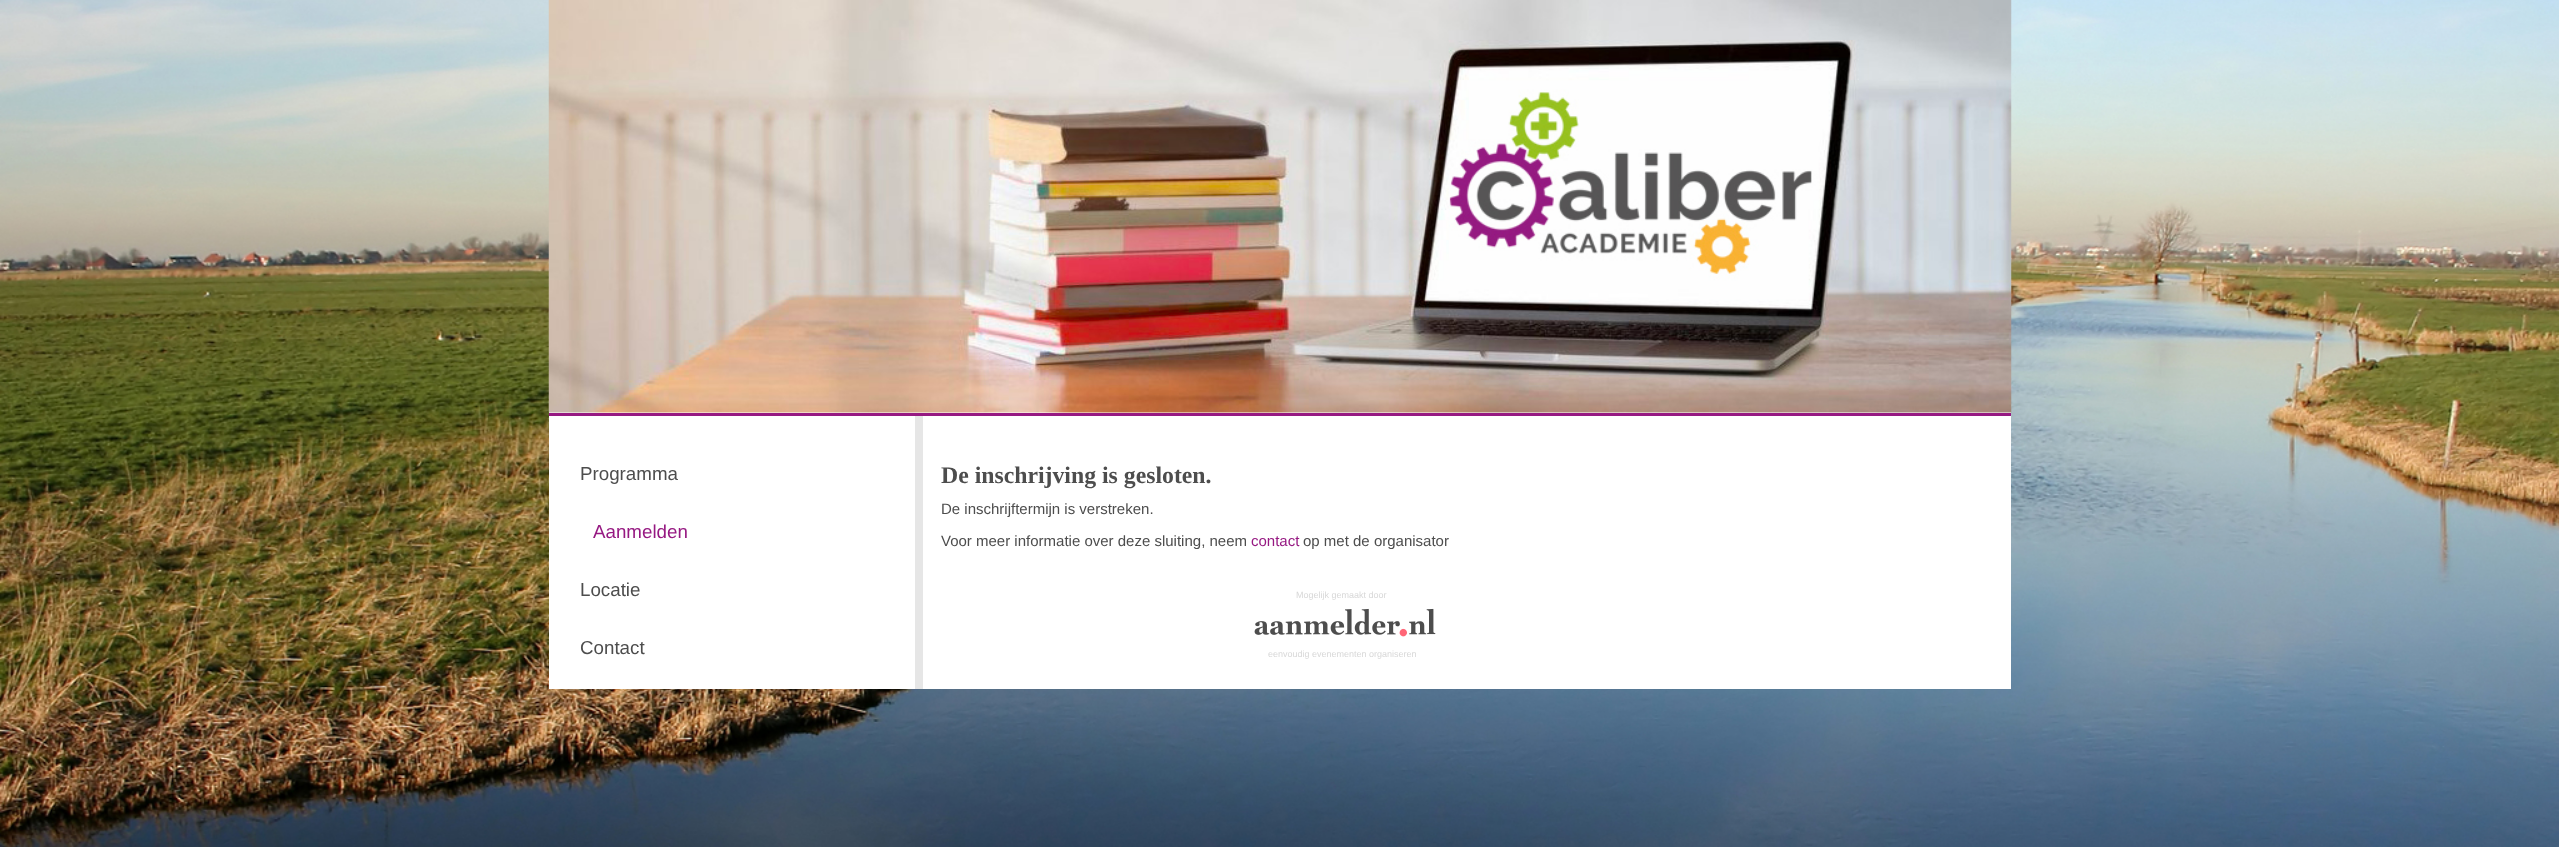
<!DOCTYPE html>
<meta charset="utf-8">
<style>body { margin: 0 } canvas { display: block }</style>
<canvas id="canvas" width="2559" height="847"></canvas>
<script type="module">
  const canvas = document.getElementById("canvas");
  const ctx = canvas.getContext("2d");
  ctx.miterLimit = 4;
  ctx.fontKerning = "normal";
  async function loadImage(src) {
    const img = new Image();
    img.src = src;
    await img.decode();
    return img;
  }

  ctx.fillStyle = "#ffffff";
  ctx.fillRect(0, 0, 2559, 847);
  ctx.drawImage(await loadImage("img1.png"), 0, 0, 2559, 847);
  ctx.fillRect(549, 412, 1462, 1);
  ctx.fillStyle = "#961982";
  ctx.fillRect(549, 413, 1462, 3);
  ctx.drawImage(await loadImage("img2.png"), 548, 0, 1464, 413);
  ctx.fillStyle = "#ffffff";
  ctx.fillRect(549, 416, 1462, 273);
  ctx.font = "18.75px Liberation Sans";
  ctx.fillStyle = "#4d4d4d";
  ctx.fillText("Programma", 580, 480);
  ctx.fillStyle = "#961982";
  ctx.fillText("Aanmelden", 593, 538);
  ctx.fillStyle = "#4d4d4d";
  ctx.fillText("Locatie", 580, 596);
  ctx.fillText("Contact", 580, 654);
  ctx.fillStyle = "#e6e6e6";
  ctx.fillRect(915, 416, 8, 273);
  ctx.font = "bold 23.75px Liberation Serif";
  ctx.fillStyle = "#4d4d4d";
  ctx.fillText("De inschrijving is gesloten.", 941, 483);
  ctx.font = "15px Liberation Sans";
  ctx.fillText("De inschrijftermijn is verstreken.", 941, 514);
  ctx.fillText("Voor meer informatie over deze sluiting, neem", 941, 546);
  ctx.fillStyle = "#961982";
  ctx.fillText("contact", 1251, 546);
  ctx.fillStyle = "#4d4d4d";
  ctx.fillText("op met de organisator", 1303, 546);
  ctx.font = "9px Liberation Sans";
  ctx.fillStyle = "#d8d8d8";
  ctx.fillText("Mogelijk gemaakt door", 1296, 598);
  ctx.drawImage(await loadImage("img3.png"), 1254, 608, 182, 29);
  ctx.fillText("eenvoudig evenementen organiseren", 1268, 657);
</script>
